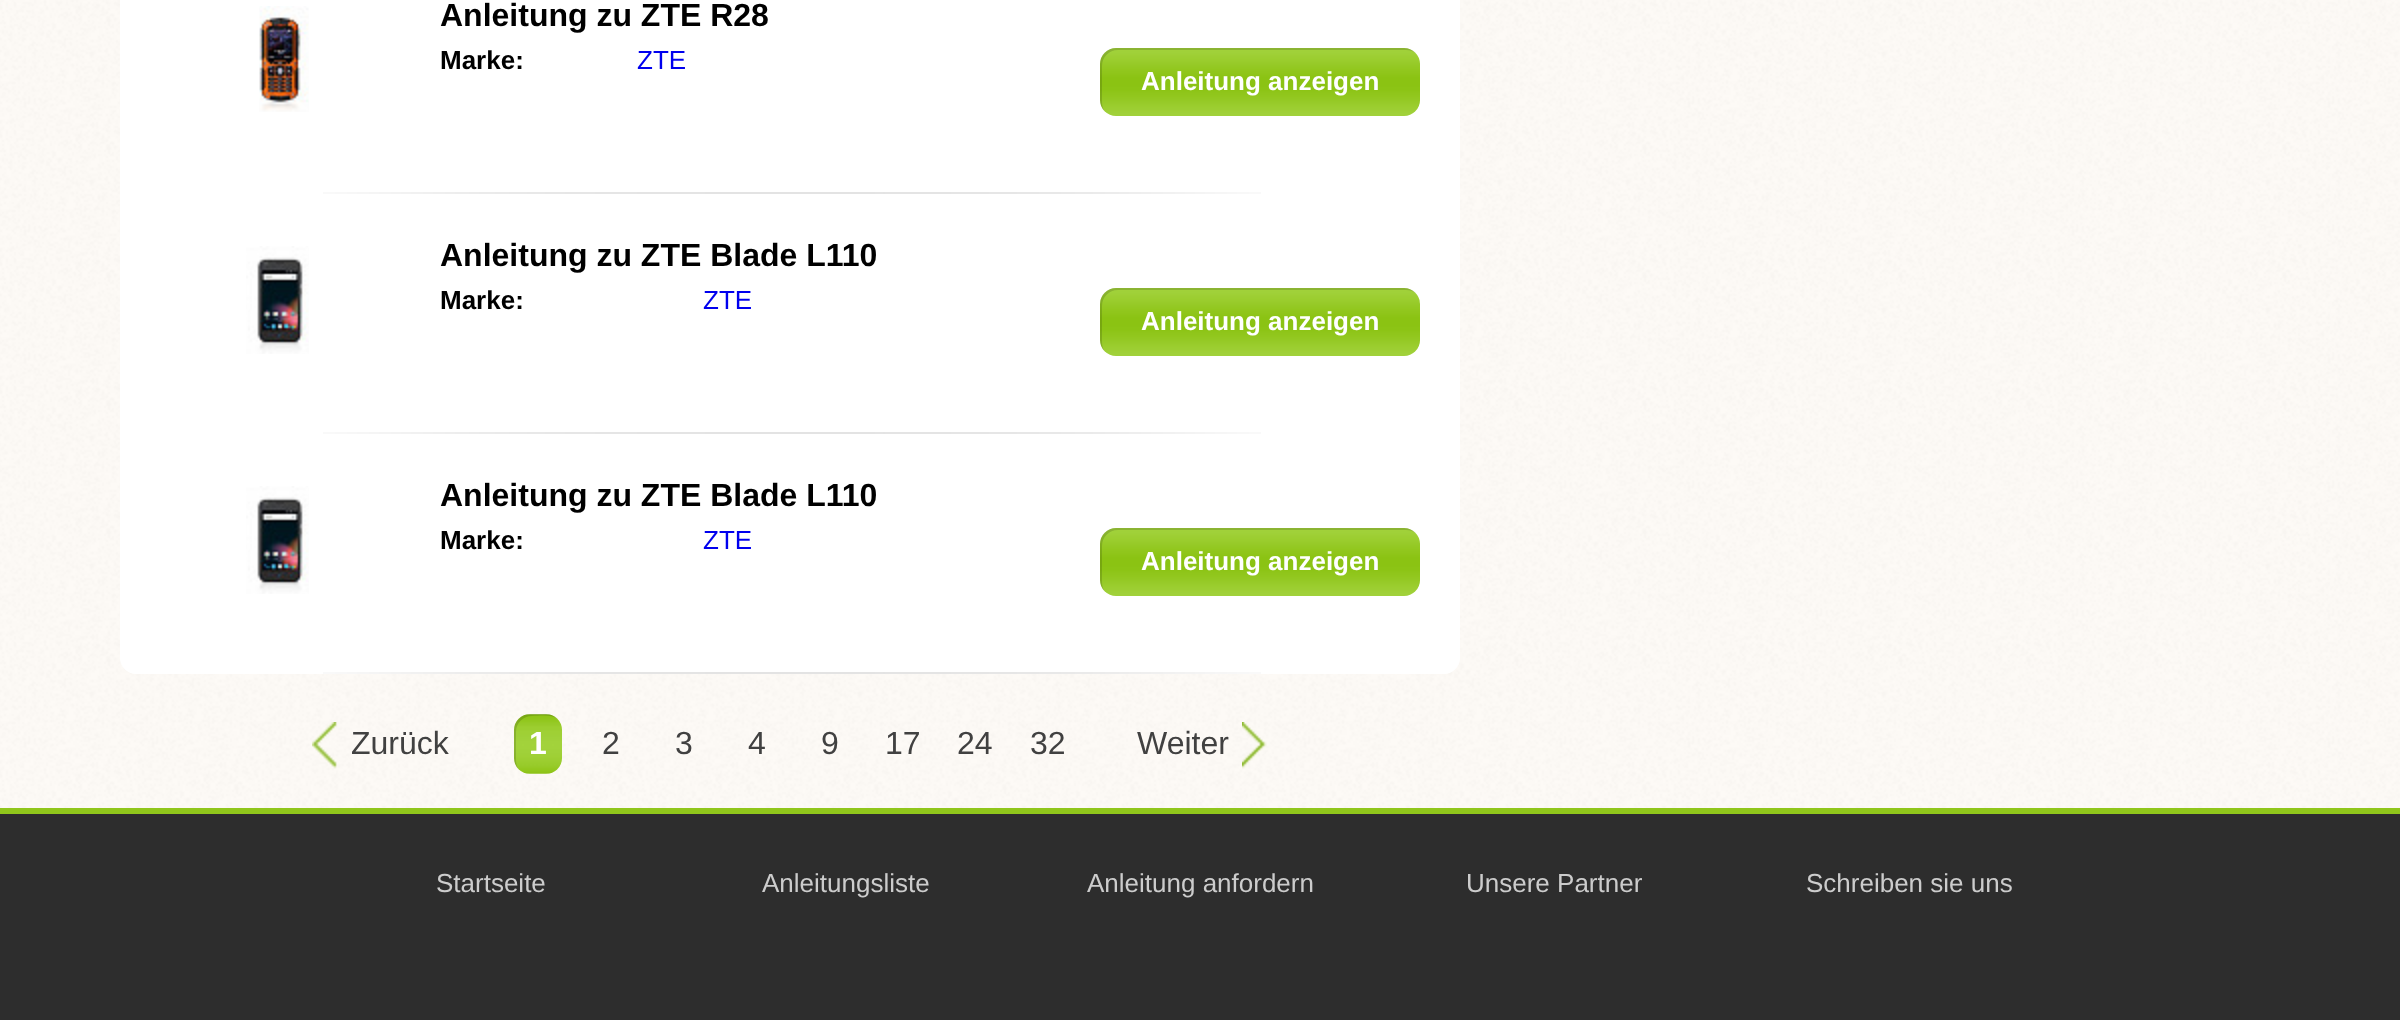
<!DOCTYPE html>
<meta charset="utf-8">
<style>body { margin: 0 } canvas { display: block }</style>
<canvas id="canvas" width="2400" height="1020"></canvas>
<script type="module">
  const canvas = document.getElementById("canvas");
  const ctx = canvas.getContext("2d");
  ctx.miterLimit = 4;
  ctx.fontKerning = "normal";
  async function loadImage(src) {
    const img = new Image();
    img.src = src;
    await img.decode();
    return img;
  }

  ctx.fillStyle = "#ffffff";
  ctx.fillRect(0, 0, 2400, 1020);
  ctx.drawImage(await loadImage("img1.png"), 0, 0, 2400, 808);
  ctx.beginPath();
  ctx.roundRect(120, -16, 1340, 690, 16);
  ctx.fill();
  ctx.drawImage(await loadImage("img2.png"), 323, 192, 938, 2);
  ctx.drawImage(await loadImage("img3.png"), 259, 6, 50, 106);
  ctx.font = "bold 32px Liberation Sans";
  ctx.fillStyle = "#000000";
  ctx.fillText("Anleitung zu ZTE R28", 440, 26);
  ctx.font = "bold 26px Liberation Sans";
  ctx.fillText("Marke:", 440, 69);
  ctx.font = "26px Liberation Sans";
  ctx.fillStyle = "#0000ee";
  ctx.fillText("ZTE", 637, 69);
  ctx.drawImage(await loadImage("img4.png"), 1100, 48, 320, 68);
  ctx.fillStyle = "rgba(0, 0, 0, 0.14)";
  ctx.beginPath();
  ctx.moveTo(1118, 50);
  ctx.lineTo(1406, 50);
  ctx.bezierCurveTo(1410, 50, 1413, 51, 1416, 53);
  ctx.bezierCurveTo(1413, 50, 1409, 48, 1404, 48);
  ctx.lineTo(1116, 48);
  ctx.bezierCurveTo(1107, 48, 1100, 55, 1100, 64);
  ctx.lineTo(1100, 100);
  ctx.bezierCurveTo(1100, 105, 1102, 109, 1105, 112);
  ctx.bezierCurveTo(1103, 109, 1102, 106, 1102, 102);
  ctx.lineTo(1102, 66);
  ctx.bezierCurveTo(1102, 57, 1109, 50, 1118, 50);
  ctx.closePath();
  ctx.fill();
  ctx.font = "bold 26px Liberation Sans";
  ctx.fillStyle = "#ffffff";
  ctx.fillText("Anleitung anzeigen", 1141, 90);
  ctx.drawImage(await loadImage("img2.png"), 323, 432, 938, 2);
  ctx.drawImage(await loadImage("img5.png"), 246, 246, 63, 108);
  ctx.font = "bold 32px Liberation Sans";
  ctx.fillStyle = "#000000";
  ctx.fillText("Anleitung zu ZTE Blade L110", 440, 266);
  ctx.font = "bold 26px Liberation Sans";
  ctx.fillText("Marke:", 440, 309);
  ctx.font = "26px Liberation Sans";
  ctx.fillStyle = "#0000ee";
  ctx.fillText("ZTE", 703, 309);
  ctx.drawImage(await loadImage("img6.png"), 1100, 288, 320, 68);
  ctx.fillStyle = "rgba(0, 0, 0, 0.14)";
  ctx.beginPath();
  ctx.moveTo(1118, 290);
  ctx.lineTo(1406, 290);
  ctx.bezierCurveTo(1410, 290, 1413, 291, 1416, 293);
  ctx.bezierCurveTo(1413, 290, 1409, 288, 1404, 288);
  ctx.lineTo(1116, 288);
  ctx.bezierCurveTo(1107, 288, 1100, 295, 1100, 304);
  ctx.lineTo(1100, 340);
  ctx.bezierCurveTo(1100, 345, 1102, 349, 1105, 352);
  ctx.bezierCurveTo(1103, 349, 1102, 346, 1102, 342);
  ctx.lineTo(1102, 306);
  ctx.bezierCurveTo(1102, 297, 1109, 290, 1118, 290);
  ctx.closePath();
  ctx.fill();
  ctx.font = "bold 26px Liberation Sans";
  ctx.fillStyle = "#ffffff";
  ctx.fillText("Anleitung anzeigen", 1141, 330);
  ctx.drawImage(await loadImage("img2.png"), 323, 672, 938, 2);
  ctx.drawImage(await loadImage("img5.png"), 246, 486, 63, 108);
  ctx.font = "bold 32px Liberation Sans";
  ctx.fillStyle = "#000000";
  ctx.fillText("Anleitung zu ZTE Blade L110", 440, 506);
  ctx.font = "bold 26px Liberation Sans";
  ctx.fillText("Marke:", 440, 549);
  ctx.font = "26px Liberation Sans";
  ctx.fillStyle = "#0000ee";
  ctx.fillText("ZTE", 703, 549);
  ctx.drawImage(await loadImage("img4.png"), 1100, 528, 320, 68);
  ctx.fillStyle = "rgba(0, 0, 0, 0.14)";
  ctx.beginPath();
  ctx.moveTo(1118, 530);
  ctx.lineTo(1406, 530);
  ctx.bezierCurveTo(1410, 530, 1413, 531, 1416, 533);
  ctx.bezierCurveTo(1413, 530, 1409, 528, 1404, 528);
  ctx.lineTo(1116, 528);
  ctx.bezierCurveTo(1107, 528, 1100, 535, 1100, 544);
  ctx.lineTo(1100, 580);
  ctx.bezierCurveTo(1100, 585, 1102, 589, 1105, 592);
  ctx.bezierCurveTo(1103, 589, 1102, 586, 1102, 582);
  ctx.lineTo(1102, 546);
  ctx.bezierCurveTo(1102, 537, 1109, 530, 1118, 530);
  ctx.closePath();
  ctx.fill();
  ctx.font = "bold 26px Liberation Sans";
  ctx.fillStyle = "#ffffff";
  ctx.fillText("Anleitung anzeigen", 1141, 570);
  ctx.drawImage(await loadImage("img7.png"), 312, 722, 25, 47);
  ctx.font = "32px Liberation Sans";
  ctx.fillStyle = "#414141";
  ctx.fillText("Zurück", 351, 754);
  ctx.drawImage(await loadImage("img8.png"), 514, 714, 48, 60);
  ctx.fillStyle = "rgba(0, 0, 0, 0.14)";
  ctx.beginPath();
  ctx.moveTo(532, 716);
  ctx.bezierCurveTo(540, 716, 551, 714, 558, 719);
  ctx.bezierCurveTo(555, 716, 551, 714, 546, 714);
  ctx.lineTo(530, 714);
  ctx.bezierCurveTo(521, 714, 514, 721, 514, 730);
  ctx.lineTo(514, 758);
  ctx.bezierCurveTo(514, 763, 516, 767, 519, 770);
  ctx.bezierCurveTo(517, 767, 516, 764, 516, 760);
  ctx.lineTo(516, 732);
  ctx.bezierCurveTo(516, 723, 523, 716, 532, 716);
  ctx.closePath();
  ctx.fill();
  ctx.font = "bold 32px Liberation Sans";
  ctx.fillStyle = "#ffffff";
  ctx.fillText("1", 529, 754);
  ctx.font = "32px Liberation Sans";
  ctx.fillStyle = "#414141";
  ctx.fillText("2", 602, 754);
  ctx.fillText("3", 675, 754);
  ctx.fillText("4", 748, 754);
  ctx.fillText("9", 821, 754);
  ctx.fillText("17", 885, 754);
  ctx.fillText("24", 957, 754);
  ctx.fillText("32", 1030, 754);
  ctx.fillText("Weiter", 1137, 754);
  ctx.drawImage(await loadImage("img9.png"), 1242, 722, 25, 47);
  ctx.fillStyle = "#2d2d2d";
  ctx.fillRect(0, 814, 2400, 206);
  ctx.fillStyle = "#90c61b";
  ctx.fillRect(0, 808, 2400, 6);
  ctx.font = "26px Liberation Sans";
  ctx.fillStyle = "#cccccc";
  ctx.fillText("Startseite", 436, 892);
  ctx.fillText("Anleitungsliste", 762, 892);
  ctx.fillText("Anleitung anfordern", 1087, 892);
  ctx.fillText("Unsere Partner", 1466, 892);
  ctx.fillText("Schreiben sie uns", 1806, 892);
</script>
